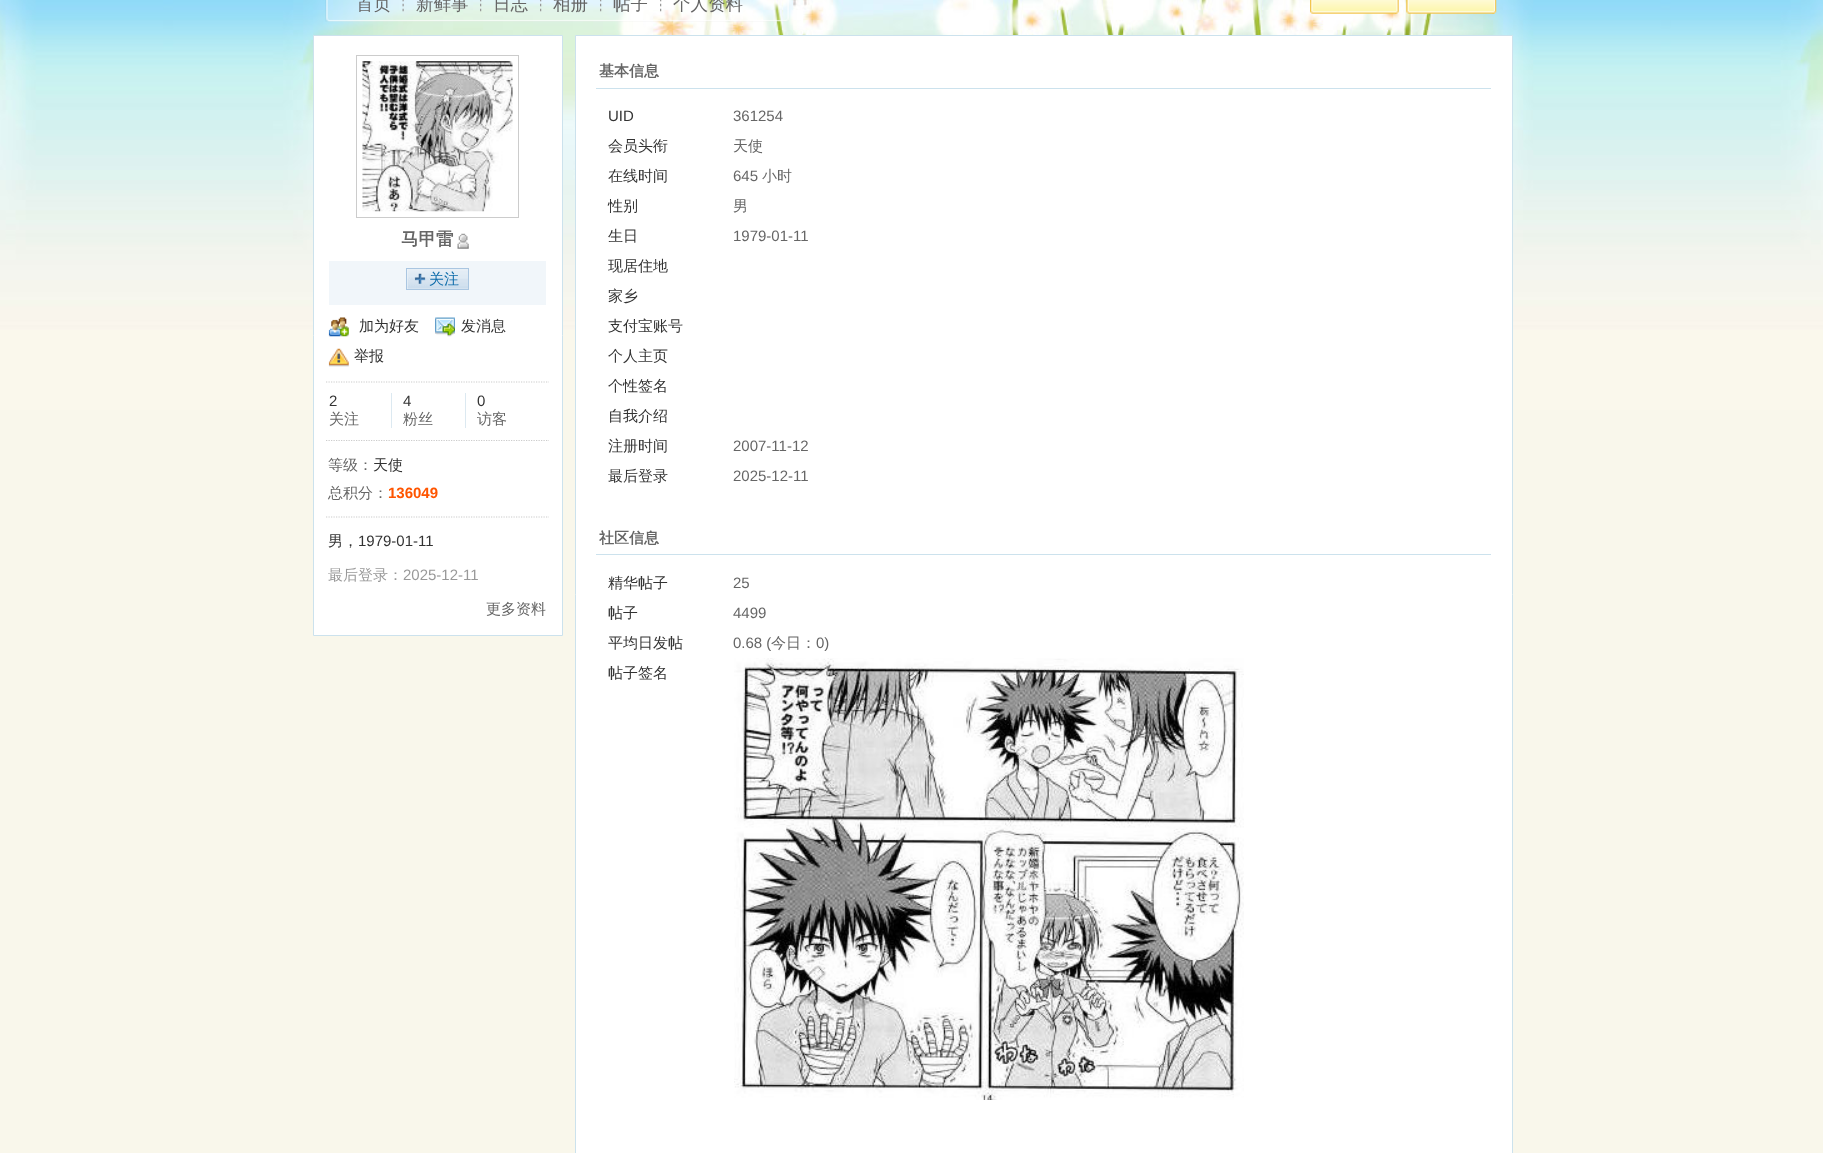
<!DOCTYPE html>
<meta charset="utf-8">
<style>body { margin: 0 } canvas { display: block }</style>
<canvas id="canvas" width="1823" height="1153"></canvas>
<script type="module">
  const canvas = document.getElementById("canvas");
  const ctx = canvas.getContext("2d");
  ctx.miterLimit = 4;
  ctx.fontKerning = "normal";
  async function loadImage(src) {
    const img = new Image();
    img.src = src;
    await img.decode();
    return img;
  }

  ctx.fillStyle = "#f9f7eb";
  ctx.fillRect(0, 0, 1823, 1153);
  ctx.drawImage(await loadImage("img1.png"), 0, 0, 1823, 410);
  ctx.drawImage(await loadImage("img2.png"), 325, 0, 464, 22);
  ctx.drawImage(await loadImage("img3.png"), 402, 0, 2, 12);
  ctx.font = "500 17.5px WenQuanYi Zen Hei";
  ctx.fillStyle = "#666666";
  ctx.fillText("首页", 356, 10);
  ctx.drawImage(await loadImage("img4.png"), 480, 0, 2, 12);
  ctx.fillText("新鲜事", 416, 10);
  ctx.drawImage(await loadImage("img5.png"), 540, 0, 2, 12);
  ctx.fillText("日志", 493, 10);
  ctx.drawImage(await loadImage("img6.png"), 600, 0, 2, 12);
  ctx.fillText("相册", 553, 10);
  ctx.drawImage(await loadImage("img7.png"), 660, 0, 2, 12);
  ctx.fillText("帖子", 613, 10);
  ctx.fillText("个人资料", 673, 10);
  ctx.drawImage(await loadImage("img8.png"), 1394, 0, 5, 14);
  ctx.drawImage(await loadImage("img9.png"), 1310, 0, 87, 14);
  ctx.drawImage(await loadImage("img10.png"), 1492, 0, 5, 14);
  ctx.drawImage(await loadImage("img11.png"), 1406, 0, 88, 14);
  ctx.fillStyle = "#ffffff";
  ctx.beginPath();
  ctx.rect(313.5, 35.5, 249, 600);
  ctx.fill();
  ctx.strokeStyle = "#cce2ed";
  ctx.stroke();
  ctx.strokeStyle = "#cccccc";
  ctx.strokeRect(356.5, 55.5, 162, 162);
  ctx.drawImage(await loadImage("img12.png"), 362, 61, 151, 151);
  ctx.font = "bold 17.5px WenQuanYi Zen Hei";
  ctx.fillStyle = "#666666";
  ctx.fillText("马甲雷", 401, 245);
  ctx.drawImage(await loadImage("img13.png"), 457, 233, 12, 16);
  ctx.fillStyle = "#f1f6fa";
  ctx.fillRect(329, 261, 217, 44);
  ctx.drawImage(await loadImage("img14.png"), 407, 269, 61, 20);
  ctx.strokeStyle = "#aac6e1";
  ctx.strokeRect(406.5, 268.5, 62, 21);
  ctx.font = "500 15px WenQuanYi Zen Hei";
  ctx.fillStyle = "#0e6caa";
  ctx.fillText("关注", 429, 284);
  ctx.drawImage(await loadImage("img15.png"), 328, 317, 21, 20);
  ctx.fillStyle = "#333333";
  ctx.fillText("加为好友", 359, 331);
  ctx.drawImage(await loadImage("img16.png"), 435, 317, 20, 20);
  ctx.fillText("发消息", 461, 331);
  ctx.drawImage(await loadImage("img17.png"), 328, 348, 21, 19);
  ctx.fillText("举报", 354, 361);
  ctx.beginPath();
  ctx.moveTo(326, 382);
  ctx.lineTo(549, 382);
  ctx.strokeStyle = "#cccccc";
  ctx.lineWidth = 1.2;
  ctx.setLineDash([1.25, 1.25]);
  ctx.stroke();
  ctx.font = "15px Liberation Sans";
  ctx.fillText("2", 329, 406);
  ctx.font = "500 15px WenQuanYi Zen Hei";
  ctx.fillStyle = "#666666";
  ctx.fillText("关注", 329, 424);
  ctx.fillStyle = "#dce9f1";
  ctx.fillRect(391, 393, 1, 35);
  ctx.font = "15px Liberation Sans";
  ctx.fillStyle = "#333333";
  ctx.fillText("4", 403, 406);
  ctx.font = "500 15px WenQuanYi Zen Hei";
  ctx.fillStyle = "#666666";
  ctx.fillText("粉丝", 403, 424);
  ctx.fillStyle = "#dce9f1";
  ctx.fillRect(465, 393, 1, 35);
  ctx.font = "15px Liberation Sans";
  ctx.fillStyle = "#333333";
  ctx.fillText("0", 477, 406);
  ctx.font = "500 15px WenQuanYi Zen Hei";
  ctx.fillStyle = "#666666";
  ctx.fillText("访客", 477, 424);
  ctx.beginPath();
  ctx.moveTo(326, 440.5);
  ctx.lineTo(549, 440.5);
  ctx.stroke();
  ctx.fillText("等级：", 328, 470);
  ctx.fillStyle = "#333333";
  ctx.fillText("天使", 373, 470);
  ctx.fillStyle = "#666666";
  ctx.fillText("总积分：", 328, 498);
  ctx.font = "bold 15px Liberation Sans";
  ctx.fillStyle = "#ff5500";
  ctx.fillText("136049", 388, 498);
  ctx.beginPath();
  ctx.moveTo(326, 517);
  ctx.lineTo(549, 517);
  ctx.stroke();
  ctx.font = "500 15px WenQuanYi Zen Hei";
  ctx.fillStyle = "#333333";
  ctx.fillText("男，", 328, 546);
  ctx.font = "15px Liberation Sans";
  ctx.fillText("1979-01-11", 358, 546);
  ctx.font = "500 15px WenQuanYi Zen Hei";
  ctx.fillStyle = "#999999";
  ctx.fillText("最后登录：", 328, 580);
  ctx.font = "15px Liberation Sans";
  ctx.fillText("2025-12-11", 403, 580);
  ctx.font = "500 15px WenQuanYi Zen Hei";
  ctx.fillStyle = "#666666";
  ctx.fillText("更多资料", 486, 614);
  ctx.fillStyle = "#ffffff";
  ctx.beginPath();
  ctx.rect(575.5, 35.5, 937, 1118);
  ctx.fill();
  ctx.strokeStyle = "#cce2ed";
  ctx.lineWidth = 1;
  ctx.setLineDash([]);
  ctx.stroke();
  ctx.fillStyle = "#cce2ed";
  ctx.fillRect(596, 88, 895, 1);
  ctx.font = "bold 15px WenQuanYi Zen Hei";
  ctx.fillStyle = "#666666";
  ctx.fillText("基本信息", 599, 76);
  ctx.font = "15px Liberation Sans";
  ctx.fillStyle = "#333333";
  ctx.fillText("UID", 608, 121);
  ctx.fillStyle = "#666666";
  ctx.fillText("361254", 733, 121);
  ctx.font = "500 15px WenQuanYi Zen Hei";
  ctx.fillStyle = "#333333";
  ctx.fillText("会员头衔", 608, 151);
  ctx.fillStyle = "#666666";
  ctx.fillText("天使", 733, 151);
  ctx.fillStyle = "#333333";
  ctx.fillText("在线时间", 608, 181);
  ctx.font = "15px Liberation Sans";
  ctx.fillStyle = "#666666";
  ctx.fillText("645", 733, 181);
  ctx.font = "500 15px WenQuanYi Zen Hei";
  ctx.fillText("小时", 762, 181);
  ctx.fillStyle = "#333333";
  ctx.fillText("性别", 608, 211);
  ctx.fillStyle = "#666666";
  ctx.fillText("男", 733, 211);
  ctx.fillStyle = "#333333";
  ctx.fillText("生日", 608, 241);
  ctx.font = "15px Liberation Sans";
  ctx.fillStyle = "#666666";
  ctx.fillText("1979-01-11", 733, 241);
  ctx.font = "500 15px WenQuanYi Zen Hei";
  ctx.fillStyle = "#333333";
  ctx.fillText("现居住地", 608, 271);
  ctx.fillText("家乡", 608, 301);
  ctx.fillText("支付宝账号", 608, 331);
  ctx.fillText("个人主页", 608, 361);
  ctx.fillText("个性签名", 608, 391);
  ctx.fillText("自我介绍", 608, 421);
  ctx.fillText("注册时间", 608, 451);
  ctx.font = "15px Liberation Sans";
  ctx.fillStyle = "#666666";
  ctx.fillText("2007-11-12", 733, 451);
  ctx.font = "500 15px WenQuanYi Zen Hei";
  ctx.fillStyle = "#333333";
  ctx.fillText("最后登录", 608, 481);
  ctx.font = "15px Liberation Sans";
  ctx.fillStyle = "#666666";
  ctx.fillText("2025-12-11", 733, 481);
  ctx.fillStyle = "#cce2ed";
  ctx.fillRect(596, 554, 895, 1);
  ctx.font = "bold 15px WenQuanYi Zen Hei";
  ctx.fillStyle = "#666666";
  ctx.fillText("社区信息", 599, 543);
  ctx.font = "500 15px WenQuanYi Zen Hei";
  ctx.fillStyle = "#333333";
  ctx.fillText("精华帖子", 608, 588);
  ctx.font = "15px Liberation Sans";
  ctx.fillStyle = "#666666";
  ctx.fillText("25", 733, 588);
  ctx.font = "500 15px WenQuanYi Zen Hei";
  ctx.fillStyle = "#333333";
  ctx.fillText("帖子", 608, 618);
  ctx.font = "15px Liberation Sans";
  ctx.fillStyle = "#666666";
  ctx.fillText("4499", 733, 618);
  ctx.font = "500 15px WenQuanYi Zen Hei";
  ctx.fillStyle = "#333333";
  ctx.fillText("平均日发帖", 608, 648);
  ctx.font = "15px Liberation Sans";
  ctx.fillStyle = "#666666";
  ctx.fillText("0.68 (", 733, 648);
  ctx.font = "500 15px WenQuanYi Zen Hei";
  ctx.fillText("今日：", 771, 648);
  ctx.font = "15px Liberation Sans";
  ctx.fillText("0)", 816, 648);
  ctx.font = "500 15px WenQuanYi Zen Hei";
  ctx.fillStyle = "#333333";
  ctx.fillText("帖子签名", 608, 678);
  ctx.drawImage(await loadImage("img18.png"), 734, 658, 510, 442);
</script>
